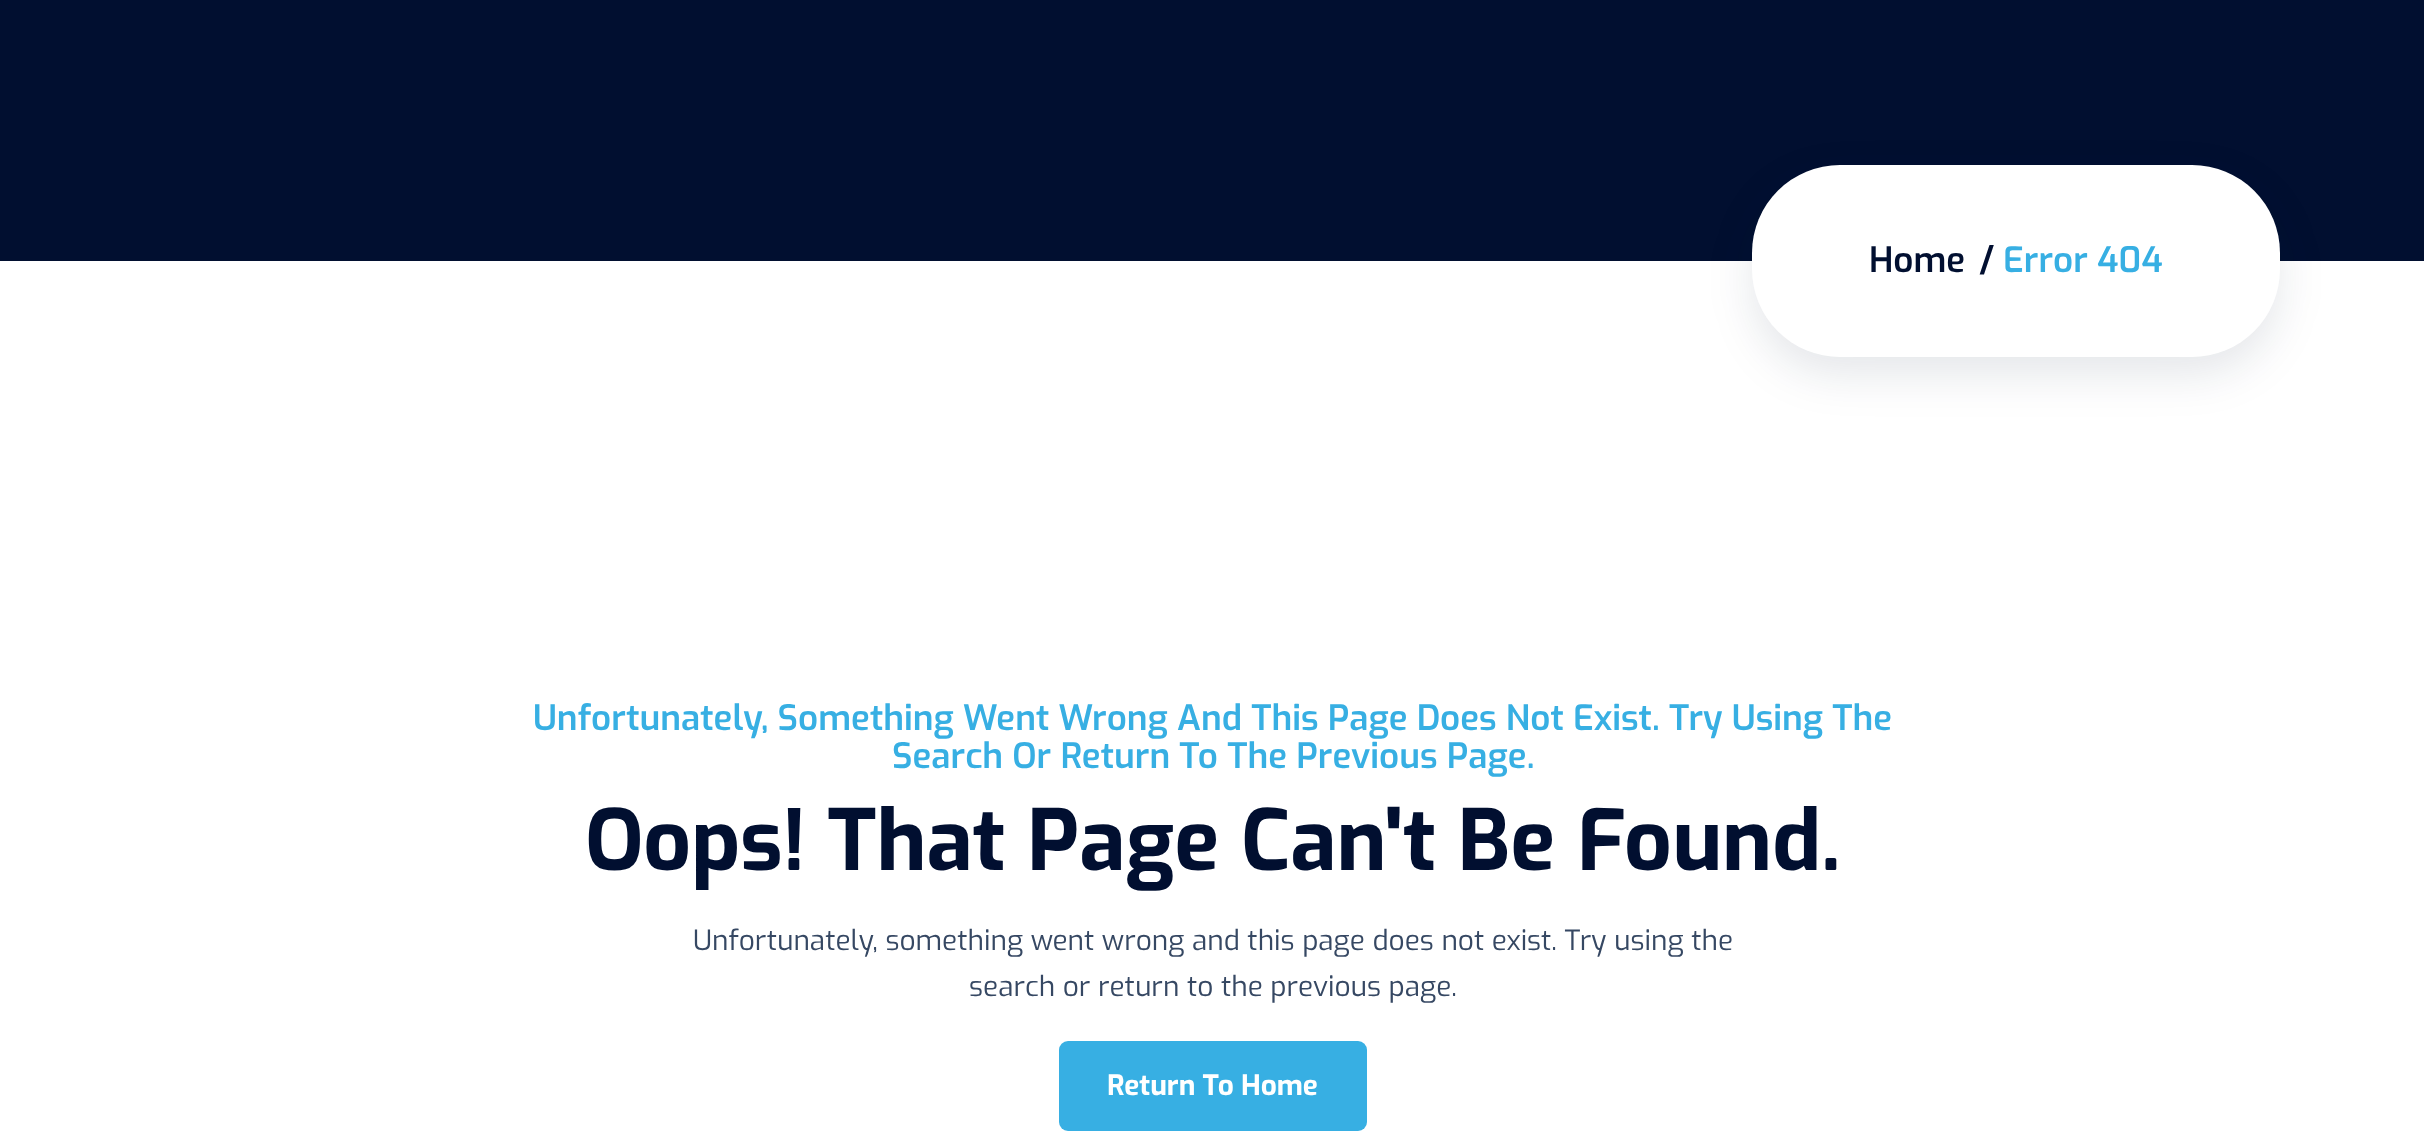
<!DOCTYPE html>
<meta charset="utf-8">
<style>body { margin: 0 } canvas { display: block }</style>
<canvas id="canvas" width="2424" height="1136"></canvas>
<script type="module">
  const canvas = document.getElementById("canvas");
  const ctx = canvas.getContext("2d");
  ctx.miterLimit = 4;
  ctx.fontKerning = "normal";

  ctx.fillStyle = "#ffffff";
  ctx.fillRect(0, 0, 2424, 1136);
  ctx.fillStyle = "#010f30";
  ctx.fillRect(0, 0, 2424, 261);
  ctx.fillStyle = "rgba(1, 15, 48, 0.1)";
  ctx.filter = "blur(22px)";
  ctx.beginPath();
  ctx.roundRect(1752, 182, 528, 193, 88);
  ctx.fill();
  ctx.filter = "none";
  ctx.fillStyle = "#ffffff";
  ctx.beginPath();
  ctx.roundRect(1752, 165, 528, 192, 88);
  ctx.fill();
  ctx.font = "600 35px Exo";
  ctx.fillStyle = "#010f30";
  ctx.fillText("Home", 1869, 272);
  ctx.fillText("/", 1979, 272);
  ctx.fillStyle = "#37afe3";
  ctx.fillText("Error 404", 2003, 272);
  ctx.fillText("Unfortunately, Something Went Wrong And This Page Does Not Exist. Try Using The", 533, 730);
  ctx.fillText("Search Or Return To The Previous Page.", 892, 768);
  ctx.font = "bold 84px Exo";
  ctx.fillStyle = "#010f30";
  ctx.fillText("Oops! That Page Can't Be Found.", 585, 870);
  ctx.font = "28px Exo";
  ctx.fillStyle = "#364863";
  ctx.fillText("Unfortunately, something went wrong and this page does not exist. Try using the", 693, 950);
  ctx.fillText("search or return to the previous page.", 969, 996);
  ctx.fillStyle = "#37afe3";
  ctx.beginPath();
  ctx.roundRect(1059, 1041, 308, 90, 9);
  ctx.fill();
  ctx.font = "bold 28px Exo";
  ctx.fillStyle = "#ffffff";
  ctx.fillText("Return To Home", 1107, 1095);
</script>
